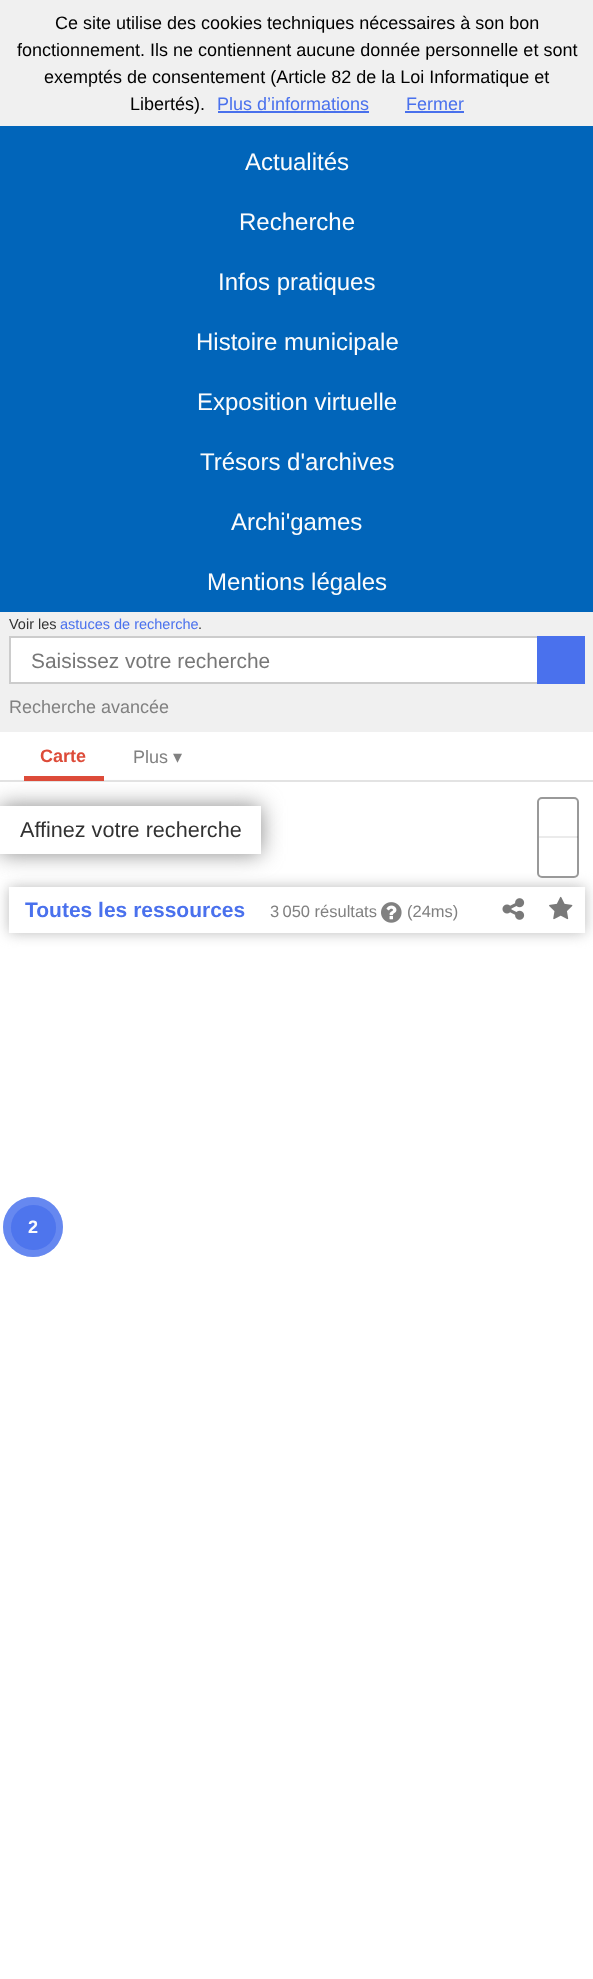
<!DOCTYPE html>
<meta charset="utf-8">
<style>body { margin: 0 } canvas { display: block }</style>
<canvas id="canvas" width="593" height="1979"></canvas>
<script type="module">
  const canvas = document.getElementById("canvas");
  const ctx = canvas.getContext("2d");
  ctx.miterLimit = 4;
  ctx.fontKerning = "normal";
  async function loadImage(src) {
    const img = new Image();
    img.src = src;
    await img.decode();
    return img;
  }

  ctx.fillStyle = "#f0f0f0";
  ctx.fillRect(0, 0, 593, 1979);
  ctx.font = "18px Liberation Sans";
  ctx.fillStyle = "#000000";
  ctx.fillText("Ce site utilise des cookies techniques nécessaires à son bon", 55, 29);
  ctx.fillText("fonctionnement. Ils ne contiennent aucune donnée personnelle et sont", 17, 56);
  ctx.fillText("exemptés de consentement (Article 82 de la Loi Informatique et", 44, 83);
  ctx.fillText("Libertés).", 130, 110);
  ctx.fillStyle = "#4a71ed";
  ctx.fillText("Plus d’informations", 217, 110);
  ctx.fillStyle = "#4970ec";
  ctx.fillRect(218, 111, 151, 2);
  ctx.fillStyle = "#4a71ed";
  ctx.fillText("Fermer", 406, 110);
  ctx.fillStyle = "#4970ec";
  ctx.fillRect(405, 111, 59, 2);
  ctx.fillStyle = "#0165ba";
  ctx.fillRect(0, 126, 593, 486);
  ctx.font = "24px Liberation Sans";
  ctx.fillStyle = "#fcfcfc";
  ctx.fillText("Actualités", 245, 170);
  ctx.fillText("Recherche", 239, 230);
  ctx.fillText("Infos pratiques", 218, 290);
  ctx.fillText("Histoire municipale", 196, 350);
  ctx.fillText("Exposition virtuelle", 197, 410);
  ctx.fillText("Trésors d'archives", 200, 470);
  ctx.fillText("Archi'games", 231, 530);
  ctx.fillText("Mentions légales", 207, 590);
  ctx.font = "14.5px Liberation Sans";
  ctx.fillStyle = "#323232";
  ctx.fillText("Voir les", 9, 629);
  ctx.fillStyle = "#4a71ed";
  ctx.fillText("astuces de recherche", 60, 629);
  ctx.fillStyle = "#323232";
  ctx.fillText(".", 198, 629);
  ctx.fillStyle = "#ffffff";
  ctx.fillRect(11, 638, 526, 44);
  ctx.strokeStyle = "#cccccc";
  ctx.lineWidth = 2;
  ctx.strokeRect(10, 637, 574, 46);
  ctx.font = "20.9px Liberation Sans";
  ctx.fillStyle = "#777777";
  ctx.fillText("Saisissez votre recherche", 31, 668);
  ctx.fillStyle = "#4a71ed";
  ctx.fillRect(537, 636, 48, 48);
  ctx.font = "18px Liberation Sans";
  ctx.fillStyle = "#818181";
  ctx.fillText("Recherche avancée", 9, 713);
  ctx.fillStyle = "#ffffff";
  ctx.fillRect(0, 732, 593, 48);
  ctx.fillStyle = "#e3e3e3";
  ctx.fillRect(0, 780, 593, 2);
  ctx.fillStyle = "#dd4b39";
  ctx.fillRect(24, 776, 80, 5);
  ctx.font = "bold 18px Liberation Sans";
  ctx.fillText("Carte", 40, 762);
  ctx.font = "18px Liberation Sans";
  ctx.fillStyle = "#818181";
  ctx.fillText("Plus", 133, 763);
  ctx.font = "18px DejaVu Sans";
  ctx.fillText("▾", 173, 763);
  ctx.fillStyle = "#ffffff";
  ctx.fillRect(0, 782, 593, 1197);
  ctx.fillStyle = "#888888";
  ctx.filter = "blur(11px)";
  ctx.beginPath();
  ctx.rect(0, 806, 261, 48);
  ctx.fill();
  ctx.filter = "none";
  ctx.fillStyle = "#ffffff";
  ctx.fillRect(0, 806, 261, 48);
  ctx.font = "21.6px Liberation Sans";
  ctx.fillStyle = "#323232";
  ctx.fillText("Affinez votre recherche", 20, 837);
  ctx.save();
  ctx.beginPath();
  ctx.moveTo(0, 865);
  ctx.lineTo(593, 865);
  ctx.lineTo(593, 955);
  ctx.lineTo(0, 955);
  ctx.closePath();
  ctx.moveTo(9, 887);
  ctx.lineTo(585, 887);
  ctx.lineTo(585, 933);
  ctx.lineTo(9, 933);
  ctx.closePath();
  ctx.clip("evenodd");
  ctx.fillStyle = "#bbbbbb";
  ctx.filter = "blur(7px)";
  ctx.beginPath();
  ctx.rect(9, 887, 576, 46);
  ctx.fill();
  ctx.filter = "none";
  ctx.restore();
  ctx.font = "bold 21px Liberation Sans";
  ctx.fillStyle = "#4a71ed";
  ctx.fillText("Toutes les ressources", 25, 917);
  ctx.font = "16.5px Liberation Sans";
  ctx.fillStyle = "#818181";
  ctx.fillText("3 050 résultats", 270, 917);
  ctx.drawImage(await loadImage("img1.png"), 381, 902, 21, 21);
  ctx.fillText("(24ms)", 407, 917);
  ctx.drawImage(await loadImage("img2.png"), 502, 898, 23, 22);
  ctx.drawImage(await loadImage("img3.png"), 549, 896, 24, 24);
  ctx.fillStyle = "#ffffff";
  ctx.beginPath();
  ctx.roundRect(538, 798, 40, 79, 4);
  ctx.fill();
  ctx.strokeStyle = "#999999";
  ctx.stroke();
  ctx.fillStyle = "rgba(0, 0, 0, 0.08)";
  ctx.fillRect(539, 836, 39, 2);
  ctx.fillStyle = "#92aaf4";
  ctx.beginPath();
  ctx.arc(33, 1227, 30, 0, Math.PI * 2);
  ctx.fill();
  ctx.fillStyle = "#6788f0";
  ctx.beginPath();
  ctx.arc(33.5, 1227.5, 22.5, 0, Math.PI * 2);
  ctx.fill();
  ctx.fillStyle = "rgba(74, 113, 237, 0.6)";
  ctx.beginPath();
  ctx.arc(33, 1227, 30, 0, Math.PI * 2);
  ctx.fill();
  ctx.beginPath();
  ctx.arc(33.5, 1227.5, 22.5, 0, Math.PI * 2);
  ctx.fill();
  ctx.font = "bold 18px Liberation Sans";
  ctx.fillStyle = "#fcfcfc";
  ctx.fillText("2", 28, 1233);
</script>
